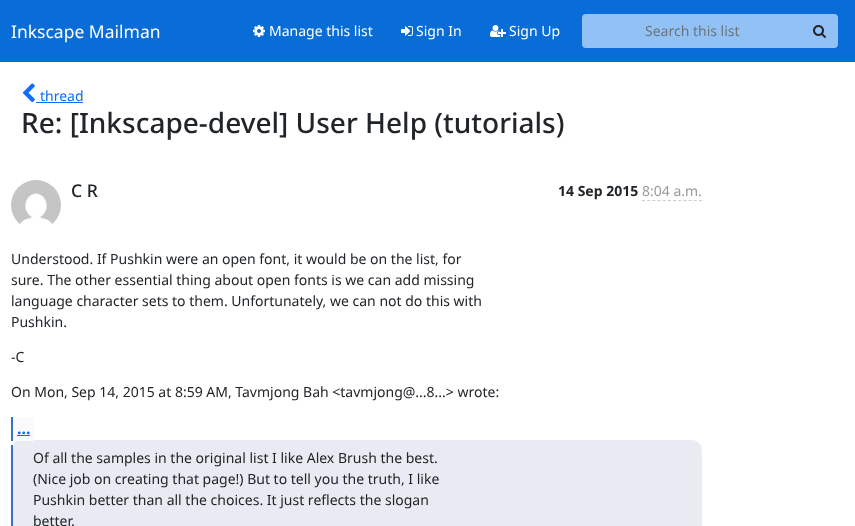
<!DOCTYPE html>
<meta charset="utf-8">
<style>body { margin: 0 } canvas { display: block }</style>
<canvas id="canvas" width="855" height="526"></canvas>
<script type="module">
  const canvas = document.getElementById("canvas");
  const ctx = canvas.getContext("2d");
  ctx.miterLimit = 4;
  ctx.fontKerning = "normal";
  async function loadImage(src) {
    const img = new Image();
    img.src = src;
    await img.decode();
    return img;
  }

  ctx.fillStyle = "#ffffff";
  ctx.fillRect(0, 0, 855, 526);
  ctx.fillStyle = "#086dd7";
  ctx.fillRect(0, 0, 855, 62);
  ctx.font = "17.5px Noto Sans";
  ctx.fillStyle = "#ffffff";
  ctx.fillText("Inkscape Mailman", 11, 38);
  ctx.drawImage(await loadImage("img1.png"), 253, 25, 12, 12);
  ctx.font = "14px Noto Sans";
  ctx.fillText("Manage this list", 269, 36);
  ctx.drawImage(await loadImage("img2.png"), 401, 26, 12, 10);
  ctx.fillText("Sign In", 416, 36);
  ctx.drawImage(await loadImage("img3.png"), 490, 25, 16, 12);
  ctx.fillText("Sign Up", 509, 36);
  ctx.fillStyle = "#92c2f5";
  ctx.beginPath();
  ctx.roundRect(582, 14, 221, 34, [4, 0, 0, 4]);
  ctx.fill();
  ctx.fillStyle = "#6c757d";
  ctx.fillText("Search this list", 645, 36);
  ctx.fillStyle = "#92c2f5";
  ctx.beginPath();
  ctx.roundRect(802, 14, 36, 34, [0, 4, 4, 0]);
  ctx.fill();
  ctx.drawImage(await loadImage("img4.png"), 813, 25, 13, 13);
  ctx.drawImage(await loadImage("img5.png"), 22, 83, 13, 20);
  ctx.fillStyle = "#0d6efd";
  ctx.fillText("thread", 40, 101);
  ctx.fillRect(36, 102, 47, 1);
  ctx.font = "500 28px Noto Sans";
  ctx.fillStyle = "#212529";
  ctx.fillText("Re: [Inkscape-devel] User Help (tutorials)", 21, 133);
  ctx.drawImage(await loadImage("img6.png"), 11, 180, 50, 44);
  ctx.font = "500 17.5px Noto Sans";
  ctx.fillText("C R", 71, 197);
  ctx.font = "bold 14px Noto Sans";
  ctx.fillText("14 Sep 2015", 558, 196);
  ctx.font = "14px Noto Sans";
  ctx.fillStyle = "#999999";
  ctx.fillText("8:04 a.m.", 642, 196);
  ctx.beginPath();
  ctx.moveTo(642, 200.5);
  ctx.lineTo(702, 200.5);
  ctx.strokeStyle = "#cccccc";
  ctx.setLineDash([3, 2.18]);
  ctx.stroke();
  ctx.fillStyle = "#212529";
  ctx.fillText("Understood. If Pushkin were an open font, it would be on the list, for", 11, 264);
  ctx.fillText("sure. The other essential thing about open fonts is we can add missing", 11, 285);
  ctx.fillText("language character sets to them. Unfortunately, we can not do this with", 11, 306);
  ctx.fillText("Pushkin.", 11, 327);
  ctx.fillText("-C", 11, 362);
  ctx.fillText("On Mon, Sep 14, 2015 at 8:59 AM, Tavmjong Bah <tavmjong@...8...> wrote:", 11, 397);
  ctx.fillStyle = "#e8ecf2";
  ctx.beginPath();
  ctx.roundRect(11, 440, 691, 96, 10);
  ctx.fill();
  ctx.fillStyle = "#fafafa";
  ctx.fillRect(13, 417, 21, 24);
  ctx.font = "bold 16px Noto Sans";
  ctx.fillStyle = "#0d6efd";
  ctx.fillText("...", 17, 434);
  ctx.fillStyle = "#3771c8";
  ctx.fillRect(11, 417, 2, 24);
  ctx.fillStyle = "#0d6efd";
  ctx.fillRect(17, 435, 13, 1);
  ctx.fillStyle = "#3771c8";
  ctx.fillRect(11, 445, 2, 81);
  ctx.font = "14px Noto Sans";
  ctx.fillStyle = "#212529";
  ctx.fillText("Of all the samples in the original list I like Alex Brush the best.", 33, 463);
  ctx.fillText("(Nice job on creating that page!) But to tell you the truth, I like", 33, 484);
  ctx.fillText("Pushkin better than all the choices. It just reflects the slogan", 33, 505);
  ctx.fillText("better.", 33, 526);
</script>
